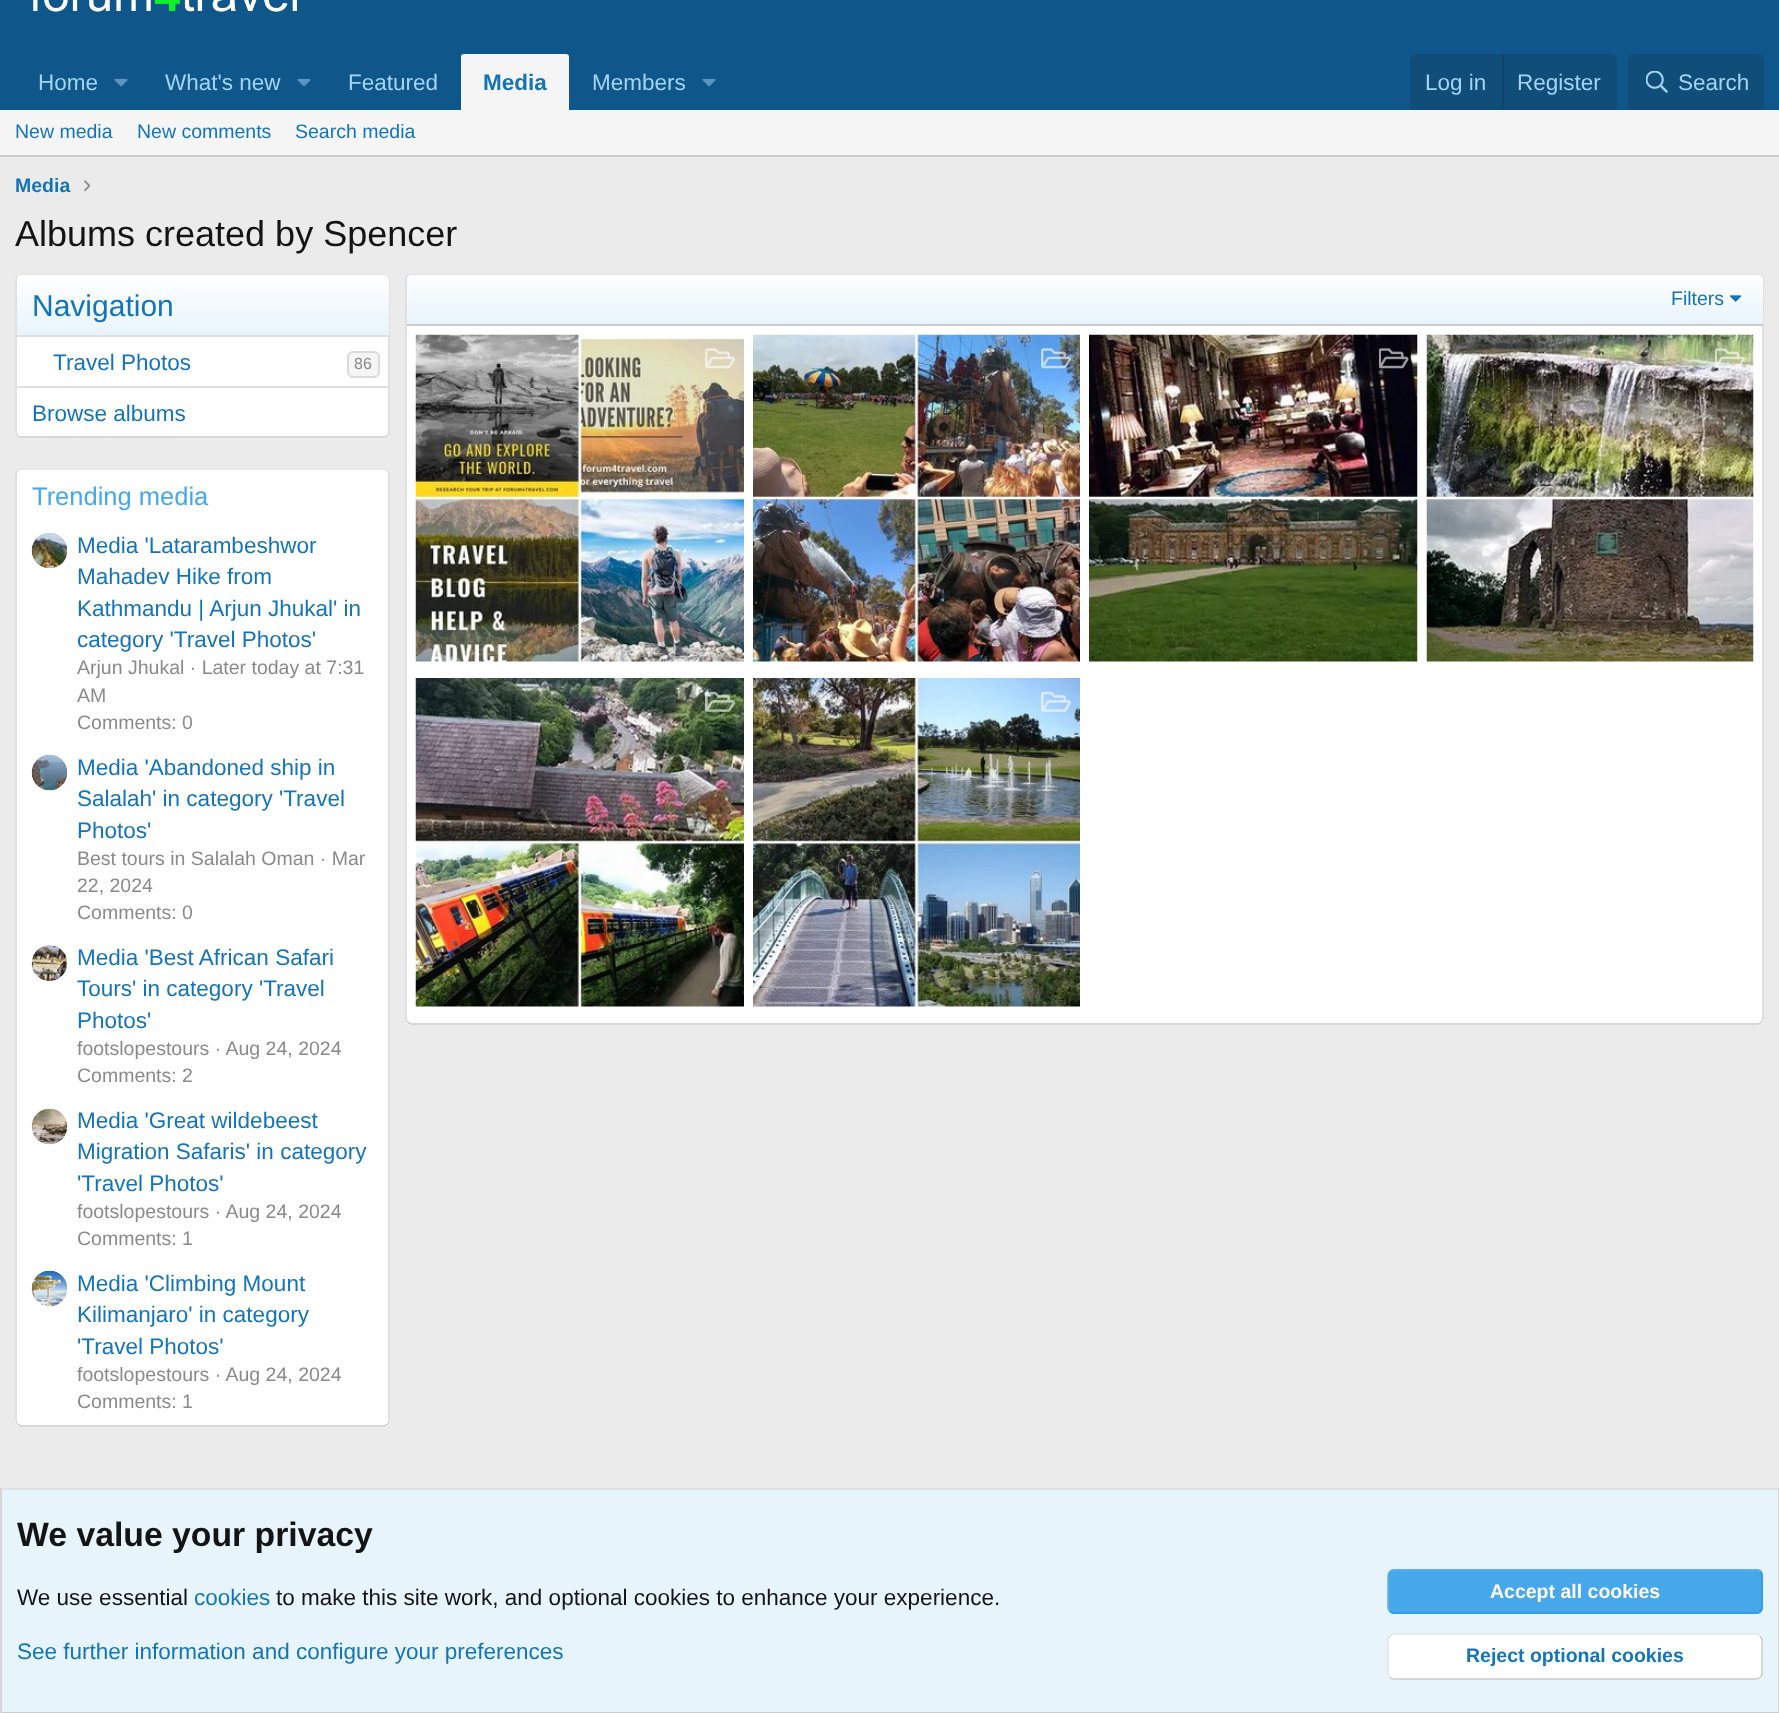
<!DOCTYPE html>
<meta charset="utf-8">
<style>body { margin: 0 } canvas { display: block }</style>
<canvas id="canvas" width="1779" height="1713"></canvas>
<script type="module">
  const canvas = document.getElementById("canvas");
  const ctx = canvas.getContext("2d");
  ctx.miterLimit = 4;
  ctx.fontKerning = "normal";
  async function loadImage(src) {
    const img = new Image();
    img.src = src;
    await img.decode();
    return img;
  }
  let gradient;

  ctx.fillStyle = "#ebebeb";
  ctx.fillRect(0, 0, 1779, 1713);
  ctx.fillStyle = "#0f578a";
  ctx.fillRect(0, 0, 1779, 110);
  ctx.drawImage(await loadImage("img1.png"), 33, 0, 264, 12);
  ctx.font = "22.5px Liberation Sans";
  ctx.fillStyle = "#a3d4f5";
  ctx.fillText("Home", 38, 90);
  ctx.drawImage(await loadImage("img2.png"), 114, 78, 14, 9);
  ctx.fillText("What's new", 165, 90);
  ctx.drawImage(await loadImage("img2.png"), 297, 78, 14, 9);
  ctx.fillText("Featured", 348, 90);
  ctx.fillStyle = "#f5f5f5";
  ctx.beginPath();
  ctx.roundRect(461, 54, 108, 56, [3, 3, 0, 0]);
  ctx.fill();
  ctx.font = "bold 22.5px Liberation Sans";
  ctx.fillStyle = "#1474b8";
  ctx.fillText("Media", 483, 90);
  ctx.font = "22.5px Liberation Sans";
  ctx.fillStyle = "#a3d4f5";
  ctx.fillText("Members", 592, 90);
  ctx.drawImage(await loadImage("img2.png"), 702, 78, 14, 9);
  ctx.fillStyle = "#104d78";
  ctx.beginPath();
  ctx.roundRect(1410, 54, 207, 56, [6, 6, 0, 0]);
  ctx.fill();
  ctx.fillStyle = "#a3d4f5";
  ctx.fillText("Log in", 1425, 90);
  ctx.fillStyle = "#114469";
  ctx.fillRect(1502, 54, 2, 56);
  ctx.fillStyle = "#a3d4f5";
  ctx.fillText("Register", 1517, 90);
  ctx.fillStyle = "#104d78";
  ctx.beginPath();
  ctx.roundRect(1628, 54, 136, 56, [6, 6, 0, 0]);
  ctx.fill();
  ctx.drawImage(await loadImage("img3.png"), 1646, 71, 22, 22);
  ctx.fillStyle = "#a3d4f5";
  ctx.fillText("Search", 1678, 90);
  ctx.fillStyle = "#f5f5f5";
  ctx.fillRect(0, 110, 1779, 45);
  ctx.fillStyle = "#cccccc";
  ctx.fillRect(0, 155, 1779, 2);
  ctx.font = "19.5px Liberation Sans";
  ctx.fillStyle = "#1474b8";
  ctx.fillText("New media", 15, 138);
  ctx.fillText("New comments", 137, 138);
  ctx.fillText("Search media", 295, 138);
  ctx.font = "bold 19.5px Liberation Sans";
  ctx.fillText("Media", 15, 192);
  ctx.drawImage(await loadImage("img4.png"), 84, 180, 6, 12);
  ctx.font = "36px Liberation Sans";
  ctx.fillStyle = "#141414";
  ctx.fillText("Albums created by Spencer", 15, 246);
  ctx.fillStyle = "#ffffff";
  ctx.beginPath();
  ctx.roundRect(15, 273, 375, 165, 6);
  ctx.fill();
  ctx.beginPath();
  ctx.moveTo(17.5, 275.5);
  ctx.bezierCurveTo(18.5, 274.5, 19.5, 274, 21, 274);
  ctx.lineTo(384, 274);
  ctx.bezierCurveTo(385.5, 274, 386.5, 274.5, 387.5, 275.5);
  ctx.strokeStyle = "#e0e0e0";
  ctx.lineWidth = 1.5;
  ctx.stroke();
  ctx.beginPath();
  ctx.moveTo(387.5, 275.5);
  ctx.bezierCurveTo(388.5, 276.5, 389, 277.5, 389, 279);
  ctx.lineTo(389, 432);
  ctx.bezierCurveTo(389, 433.5, 388.5, 434.5, 387.5, 435.5);
  ctx.strokeStyle = "#d6d6d6";
  ctx.stroke();
  ctx.beginPath();
  ctx.moveTo(387.5, 435.5);
  ctx.bezierCurveTo(386.5, 436.5, 385.5, 437, 384, 437);
  ctx.lineTo(21, 437);
  ctx.bezierCurveTo(19.5, 437, 18.5, 436.5, 17.5, 435.5);
  ctx.strokeStyle = "#cccccc";
  ctx.stroke();
  ctx.beginPath();
  ctx.moveTo(17.5, 435.5);
  ctx.bezierCurveTo(16.5, 434.5, 16, 433.5, 16, 432);
  ctx.lineTo(16, 279);
  ctx.bezierCurveTo(16, 277.5, 16.5, 276.5, 17.5, 275.5);
  ctx.strokeStyle = "#d6d6d6";
  ctx.stroke();
  gradient = ctx.createLinearGradient(203, 335, 203, 275);
  gradient.addColorStop(0, "#e8f4fc");
  gradient.addColorStop(1, "#ffffff");
  ctx.fillStyle = gradient;
  ctx.beginPath();
  ctx.roundRect(17, 275, 372, 60, [5, 5, 0, 0]);
  ctx.fill();
  ctx.fillStyle = "#e0e0e0";
  ctx.fillRect(17, 335, 372, 2);
  ctx.font = "30px Liberation Sans";
  ctx.fillStyle = "#1474b8";
  ctx.fillText("Navigation", 32, 316);
  ctx.font = "22.5px Liberation Sans";
  ctx.fillText("Travel Photos", 53, 370);
  ctx.fillStyle = "#f5f5f5";
  ctx.beginPath();
  ctx.roundRect(348, 352, 31, 25, 5);
  ctx.fill();
  ctx.strokeStyle = "#dbdbdb";
  ctx.lineWidth = 2;
  ctx.stroke();
  ctx.font = "16px Liberation Sans";
  ctx.fillStyle = "#8a8a8a";
  ctx.fillText("86", 354, 369);
  ctx.fillStyle = "#e0e0e0";
  ctx.fillRect(17, 386, 372, 2);
  ctx.font = "22.5px Liberation Sans";
  ctx.fillStyle = "#1474b8";
  ctx.fillText("Browse albums", 32, 421);
  ctx.fillStyle = "#ffffff";
  ctx.beginPath();
  ctx.roundRect(15, 468, 375, 959, 6);
  ctx.fill();
  ctx.beginPath();
  ctx.moveTo(17.5, 470.5);
  ctx.bezierCurveTo(18.5, 469.5, 19.5, 469, 21, 469);
  ctx.lineTo(384, 469);
  ctx.bezierCurveTo(385.5, 469, 386.5, 469.5, 387.5, 470.5);
  ctx.strokeStyle = "#e0e0e0";
  ctx.lineWidth = 1.5;
  ctx.stroke();
  ctx.beginPath();
  ctx.moveTo(387.5, 470.5);
  ctx.bezierCurveTo(388.5, 471.5, 389, 472.5, 389, 474);
  ctx.lineTo(389, 1420.5);
  ctx.bezierCurveTo(389, 1422, 388.5, 1423, 387.5, 1424);
  ctx.strokeStyle = "#d6d6d6";
  ctx.stroke();
  ctx.beginPath();
  ctx.moveTo(387.5, 1424);
  ctx.bezierCurveTo(386.5, 1425, 385.5, 1426, 384, 1426);
  ctx.lineTo(21, 1426);
  ctx.bezierCurveTo(19.5, 1426, 18.5, 1425, 17.5, 1424);
  ctx.strokeStyle = "#cccccc";
  ctx.stroke();
  ctx.beginPath();
  ctx.moveTo(17.5, 1424);
  ctx.bezierCurveTo(16.5, 1423, 16, 1422, 16, 1420.5);
  ctx.lineTo(16, 474);
  ctx.bezierCurveTo(16, 472.5, 16.5, 471.5, 17.5, 470.5);
  ctx.strokeStyle = "#d6d6d6";
  ctx.stroke();
  ctx.font = "25.5px Liberation Sans";
  ctx.fillStyle = "#47a7eb";
  ctx.fillText("Trending media", 32, 505);
  ctx.drawImage(await loadImage("img5.png"), 31, 532, 37, 37);
  ctx.font = "22.5px Liberation Sans";
  ctx.fillStyle = "#1474b8";
  ctx.fillText("Media 'Latarambeshwor", 77, 553);
  ctx.fillText("Mahadev Hike from", 77, 584);
  ctx.fillText("Kathmandu | Arjun Jhukal' in", 77, 616);
  ctx.fillText("category 'Travel Photos'", 77, 647);
  ctx.font = "19.5px Liberation Sans";
  ctx.fillStyle = "#8a8a8a";
  ctx.fillText("Arjun Jhukal · Later today at 7:31", 77, 674);
  ctx.fillText("AM", 77, 702);
  ctx.fillText("Comments: 0", 77, 729);
  ctx.drawImage(await loadImage("img6.png"), 31, 754, 37, 37);
  ctx.font = "22.5px Liberation Sans";
  ctx.fillStyle = "#1474b8";
  ctx.fillText("Media 'Abandoned ship in", 77, 775);
  ctx.fillText("Salalah' in category 'Travel", 77, 806);
  ctx.fillText("Photos'", 77, 838);
  ctx.font = "19.5px Liberation Sans";
  ctx.fillStyle = "#8a8a8a";
  ctx.fillText("Best tours in Salalah Oman · Mar", 77, 865);
  ctx.fillText("22, 2024", 77, 892);
  ctx.fillText("Comments: 0", 77, 919);
  ctx.drawImage(await loadImage("img7.png"), 31, 945, 37, 36);
  ctx.font = "22.5px Liberation Sans";
  ctx.fillStyle = "#1474b8";
  ctx.fillText("Media 'Best African Safari", 77, 965);
  ctx.fillText("Tours' in category 'Travel", 77, 996);
  ctx.fillText("Photos'", 77, 1028);
  ctx.font = "19.5px Liberation Sans";
  ctx.fillStyle = "#8a8a8a";
  ctx.fillText("footslopestours · Aug 24, 2024", 77, 1055);
  ctx.fillText("Comments: 2", 77, 1082);
  ctx.drawImage(await loadImage("img8.png"), 31, 1108, 37, 37);
  ctx.font = "22.5px Liberation Sans";
  ctx.fillStyle = "#1474b8";
  ctx.fillText("Media 'Great wildebeest", 77, 1128);
  ctx.fillText("Migration Safaris' in category", 77, 1159);
  ctx.fillText("'Travel Photos'", 77, 1191);
  ctx.font = "19.5px Liberation Sans";
  ctx.fillStyle = "#8a8a8a";
  ctx.fillText("footslopestours · Aug 24, 2024", 77, 1218);
  ctx.fillText("Comments: 1", 77, 1245);
  ctx.drawImage(await loadImage("img9.png"), 31, 1270, 37, 37);
  ctx.font = "22.5px Liberation Sans";
  ctx.fillStyle = "#1474b8";
  ctx.fillText("Media 'Climbing Mount", 77, 1291);
  ctx.fillText("Kilimanjaro' in category", 77, 1322);
  ctx.fillText("'Travel Photos'", 77, 1354);
  ctx.font = "19.5px Liberation Sans";
  ctx.fillStyle = "#8a8a8a";
  ctx.fillText("footslopestours · Aug 24, 2024", 77, 1381);
  ctx.fillText("Comments: 1", 77, 1408);
  ctx.fillStyle = "#ffffff";
  ctx.beginPath();
  ctx.roundRect(405, 273, 1359, 752, 6);
  ctx.fill();
  ctx.beginPath();
  ctx.moveTo(407.5, 275.5);
  ctx.bezierCurveTo(408.5, 274.5, 409.5, 274, 411, 274);
  ctx.lineTo(1758, 274);
  ctx.bezierCurveTo(1759.5, 274, 1760.5, 274.5, 1761.5, 275.5);
  ctx.strokeStyle = "#e0e0e0";
  ctx.stroke();
  ctx.beginPath();
  ctx.moveTo(1761.5, 275.5);
  ctx.bezierCurveTo(1762.5, 276.5, 1763, 277.5, 1763, 279);
  ctx.lineTo(1763, 1018.5);
  ctx.bezierCurveTo(1763, 1020, 1762.5, 1021, 1761.5, 1022);
  ctx.strokeStyle = "#d6d6d6";
  ctx.stroke();
  ctx.beginPath();
  ctx.moveTo(1761.5, 1022);
  ctx.bezierCurveTo(1760.5, 1023, 1759.5, 1024, 1758, 1024);
  ctx.lineTo(411, 1024);
  ctx.bezierCurveTo(409.5, 1024, 408.5, 1023, 407.5, 1022);
  ctx.strokeStyle = "#cccccc";
  ctx.stroke();
  ctx.beginPath();
  ctx.moveTo(407.5, 1022);
  ctx.bezierCurveTo(406.5, 1021, 406, 1020, 406, 1018.5);
  ctx.lineTo(406, 279);
  ctx.bezierCurveTo(406, 277.5, 406.5, 276.5, 407.5, 275.5);
  ctx.strokeStyle = "#d6d6d6";
  ctx.stroke();
  gradient = ctx.createLinearGradient(1085, 324, 1085, 275);
  gradient.addColorStop(0, "#e8f4fc");
  gradient.addColorStop(1, "#ffffff");
  ctx.fillStyle = gradient;
  ctx.beginPath();
  ctx.roundRect(407, 275, 1356, 49, [5, 5, 0, 0]);
  ctx.fill();
  ctx.fillStyle = "#cccccc";
  ctx.fillRect(407, 324, 1356, 2);
  ctx.fillStyle = "#1474b8";
  ctx.fillText("Filters", 1671, 305);
  ctx.drawImage(await loadImage("img10.png"), 1730, 295, 12, 7);
  ctx.drawImage(await loadImage("img11.png"), 415, 334, 329, 328);
  ctx.drawImage(await loadImage("img12.png"), 705, 348, 30, 21);
  ctx.drawImage(await loadImage("img13.png"), 753, 334, 327, 328);
  ctx.drawImage(await loadImage("img14.png"), 1041, 348, 30, 21);
  ctx.drawImage(await loadImage("img15.png"), 1089, 334, 329, 328);
  ctx.drawImage(await loadImage("img16.png"), 1379, 348, 30, 21);
  ctx.drawImage(await loadImage("img17.png"), 1426, 334, 328, 328);
  ctx.drawImage(await loadImage("img18.png"), 1715, 348, 30, 21);
  ctx.drawImage(await loadImage("img19.png"), 415, 678, 329, 329);
  ctx.drawImage(await loadImage("img20.png"), 705, 691, 30, 21);
  ctx.drawImage(await loadImage("img21.png"), 753, 678, 327, 329);
  ctx.drawImage(await loadImage("img22.png"), 1041, 691, 30, 21);
  ctx.fillStyle = "#e8f4fc";
  ctx.fillRect(2, 1490, 1776, 222);
  ctx.fillStyle = "#e0e0e0";
  ctx.fillRect(0, 1488, 1779, 2);
  ctx.fillStyle = "#d6d6d6";
  ctx.fillRect(1778, 1488, 1, 225);
  ctx.fillStyle = "#cccccc";
  ctx.fillRect(0, 1712, 1779, 1);
  ctx.fillStyle = "#d6d6d6";
  ctx.fillRect(0, 1488, 2, 225);
  ctx.font = "bold 33.75px Liberation Sans";
  ctx.fillStyle = "#141414";
  ctx.fillText("We value your privacy", 17, 1546);
  ctx.font = "22.5px Liberation Sans";
  ctx.fillText("We use essential", 17, 1605);
  ctx.fillStyle = "#1474b8";
  ctx.fillText("cookies", 194, 1605);
  ctx.fillStyle = "#141414";
  ctx.fillText("to make this site work, and optional cookies to enhance your experience.", 276, 1605);
  ctx.fillStyle = "#1474b8";
  ctx.fillText("See further information and configure your preferences", 17, 1659);
  ctx.fillStyle = "#47a7eb";
  ctx.beginPath();
  ctx.roundRect(1388, 1569, 375, 45, 6);
  ctx.fill();
  ctx.beginPath();
  ctx.moveTo(1760, 1571.5);
  ctx.bezierCurveTo(1761, 1572.5, 1762, 1573.5, 1762, 1575);
  ctx.lineTo(1762, 1608);
  ctx.bezierCurveTo(1762, 1609.5, 1761, 1610.5, 1760, 1611.5);
  ctx.bezierCurveTo(1759, 1612.5, 1758, 1613, 1756.5, 1613);
  ctx.lineTo(1393.5, 1613);
  ctx.bezierCurveTo(1392, 1613, 1391, 1612.5, 1390, 1611.5);
  ctx.strokeStyle = "#309ce8";
  ctx.stroke();
  ctx.beginPath();
  ctx.moveTo(1390, 1611.5);
  ctx.bezierCurveTo(1389, 1610.5, 1388, 1609.5, 1388, 1608);
  ctx.lineTo(1388, 1575);
  ctx.bezierCurveTo(1388, 1573.5, 1389, 1572.5, 1390, 1571.5);
  ctx.bezierCurveTo(1391, 1570.5, 1392, 1570, 1393.5, 1570);
  ctx.lineTo(1756.5, 1570);
  ctx.bezierCurveTo(1758, 1570, 1759, 1570.5, 1760, 1571.5);
  ctx.strokeStyle = "#5eb2ed";
  ctx.stroke();
  ctx.font = "bold 19.5px Liberation Sans";
  ctx.fillStyle = "#ffffff";
  ctx.fillText("Accept all cookies", 1490, 1598);
  ctx.beginPath();
  ctx.roundRect(1388, 1634, 375, 46, 6);
  ctx.fill();
  ctx.beginPath();
  ctx.moveTo(1760, 1636);
  ctx.bezierCurveTo(1761, 1637, 1762, 1638, 1762, 1639.5);
  ctx.lineTo(1762, 1674);
  ctx.bezierCurveTo(1762, 1675.5, 1761, 1676.5, 1760, 1677.5);
  ctx.bezierCurveTo(1759, 1678.5, 1758, 1679, 1756.5, 1679);
  ctx.lineTo(1393.5, 1679);
  ctx.bezierCurveTo(1392, 1679, 1391, 1678.5, 1390, 1677.5);
  ctx.strokeStyle = "#c9c9c9";
  ctx.stroke();
  ctx.beginPath();
  ctx.moveTo(1390, 1677.5);
  ctx.bezierCurveTo(1389, 1676.5, 1388, 1675.5, 1388, 1674);
  ctx.lineTo(1388, 1639.5);
  ctx.bezierCurveTo(1388, 1638, 1389, 1637, 1390, 1636);
  ctx.bezierCurveTo(1391, 1635, 1392, 1634, 1393.5, 1634);
  ctx.lineTo(1756.5, 1634);
  ctx.bezierCurveTo(1758, 1634, 1759, 1635, 1760, 1636);
  ctx.strokeStyle = "#e3e3e3";
  ctx.stroke();
  ctx.fillStyle = "#1474b8";
  ctx.fillText("Reject optional cookies", 1466, 1662);
</script>
